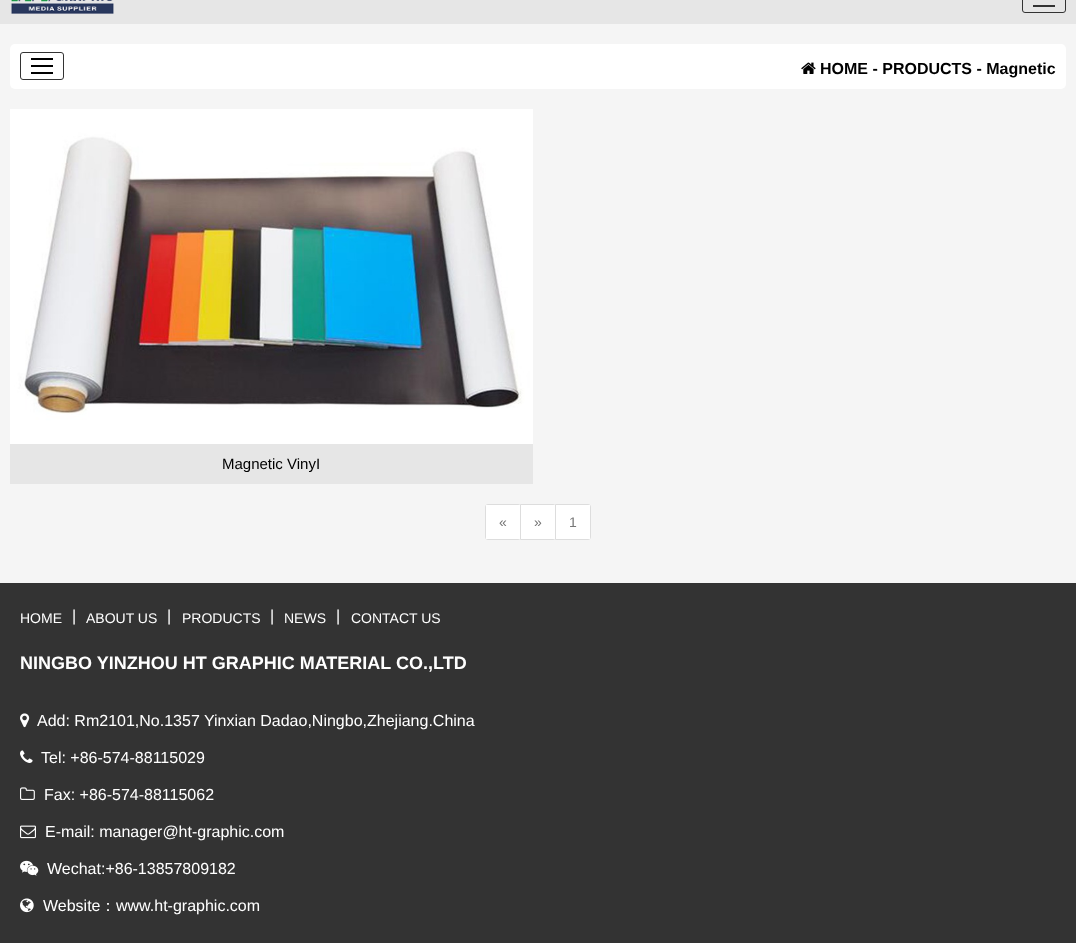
<!DOCTYPE html>
<meta charset="utf-8">
<style>body { margin: 0 } canvas { display: block }</style>
<canvas id="canvas" width="1076" height="943"></canvas>
<script type="module">
  const canvas = document.getElementById("canvas");
  const ctx = canvas.getContext("2d");
  ctx.miterLimit = 4;
  ctx.fontKerning = "normal";
  async function loadImage(src) {
    const img = new Image();
    img.src = src;
    await img.decode();
    return img;
  }

  ctx.fillStyle = "#f5f5f5";
  ctx.fillRect(0, 0, 1076, 943);
  ctx.fillStyle = "#e6e6e6";
  ctx.fillRect(0, 0, 1076, 24);
  ctx.drawImage(await loadImage("img1.png"), 10, 0, 104, 14);
  ctx.beginPath();
  ctx.roundRect(1022.5, -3.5, 43, 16, 2.5);
  ctx.strokeStyle = "#333333";
  ctx.stroke();
  ctx.fillStyle = "#333333";
  ctx.fillRect(1033, 5, 22, 2);
  ctx.fillStyle = "#ffffff";
  ctx.beginPath();
  ctx.roundRect(10, 44, 1056, 45, 5);
  ctx.fill();
  ctx.beginPath();
  ctx.roundRect(20.5, 52.5, 43, 27, 2.5);
  ctx.stroke();
  ctx.fillStyle = "#000000";
  ctx.fillRect(31, 58, 22, 2);
  ctx.fillRect(31, 65, 22, 2);
  ctx.fillRect(31, 72, 22, 2);
  ctx.drawImage(await loadImage("img2.png"), 801, 62, 15, 12);
  ctx.font = "bold 16px Liberation Sans";
  ctx.fillText("HOME - PRODUCTS - Magnetic", 820, 74);
  ctx.drawImage(await loadImage("img3.png"), 10, 109, 523, 335);
  ctx.fillStyle = "#e6e6e6";
  ctx.fillRect(10, 444, 523, 40);
  ctx.font = "15px Liberation Sans";
  ctx.fillStyle = "#000000";
  ctx.fillText("Magnetic VinyI", 222, 469);
  ctx.beginPath();
  ctx.roundRect(485.5, 504.5, 35, 35, 2.5);
  ctx.strokeStyle = "#dddddd";
  ctx.stroke();
  ctx.fillStyle = "#ffffff";
  ctx.fillRect(486, 505, 34, 34);
  ctx.font = "14px Liberation Sans";
  ctx.fillStyle = "#777777";
  ctx.fillText("«", 499, 527);
  ctx.beginPath();
  ctx.roundRect(520.5, 504.5, 35, 35, [0, 2.5, 2.5, 0]);
  ctx.stroke();
  ctx.fillStyle = "#ffffff";
  ctx.fillRect(521, 505, 34, 34);
  ctx.fillStyle = "#777777";
  ctx.fillText("»", 534, 527);
  ctx.beginPath();
  ctx.roundRect(555.5, 504.5, 35, 35, [0, 2.5, 2.5, 0]);
  ctx.stroke();
  ctx.fillStyle = "#ffffff";
  ctx.fillRect(556, 505, 34, 34);
  ctx.fillStyle = "#777777";
  ctx.fillText("1", 569, 527);
  ctx.fillStyle = "#333333";
  ctx.fillRect(0, 583, 1076, 360);
  ctx.fillStyle = "#ffffff";
  ctx.fillText("HOME", 20, 623);
  ctx.font = "16px Liberation Sans";
  ctx.fillText("|", 72, 621);
  ctx.font = "14px Liberation Sans";
  ctx.fillText("ABOUT US", 86, 623);
  ctx.font = "16px Liberation Sans";
  ctx.fillText("|", 167, 621);
  ctx.font = "14px Liberation Sans";
  ctx.fillText("PRODUCTS", 182, 623);
  ctx.font = "16px Liberation Sans";
  ctx.fillText("|", 270, 621);
  ctx.font = "14px Liberation Sans";
  ctx.fillText("NEWS", 284, 623);
  ctx.font = "16px Liberation Sans";
  ctx.fillText("|", 336, 621);
  ctx.font = "14px Liberation Sans";
  ctx.fillText("CONTACT US", 351, 623);
  ctx.font = "bold 18px Liberation Sans";
  ctx.fillText("NINGBO YINZHOU HT GRAPHIC MATERIAL CO.,LTD", 20, 669);
  ctx.drawImage(await loadImage("img4.png"), 20, 713, 10, 15);
  ctx.font = "16px Liberation Sans";
  ctx.fillText("Add: Rm2101,No.1357 Yinxian Dadao,Ningbo,Zhejiang.China", 37, 726);
  ctx.drawImage(await loadImage("img5.png"), 20, 750, 13, 13);
  ctx.fillText("Tel: +86-574-88115029", 41, 763);
  ctx.drawImage(await loadImage("img6.png"), 20, 787, 15, 13);
  ctx.fillText("Fax: +86-574-88115062", 44, 800);
  ctx.drawImage(await loadImage("img7.png"), 20, 825, 16, 14);
  ctx.fillText("E-mail: manager@ht-graphic.com", 45, 837);
  ctx.drawImage(await loadImage("img8.png"), 20, 860, 19, 16);
  ctx.fillText("Wechat:+86-13857809182", 47, 874);
  ctx.drawImage(await loadImage("img9.png"), 20, 898, 14, 15);
  ctx.fillText("Website", 43, 911);
  ctx.font = "500 16px WenQuanYi Zen Hei";
  ctx.fillText("：", 100, 911);
  ctx.font = "16px Liberation Sans";
  ctx.fillText("www.ht-graphic.com", 116, 911);
</script>
